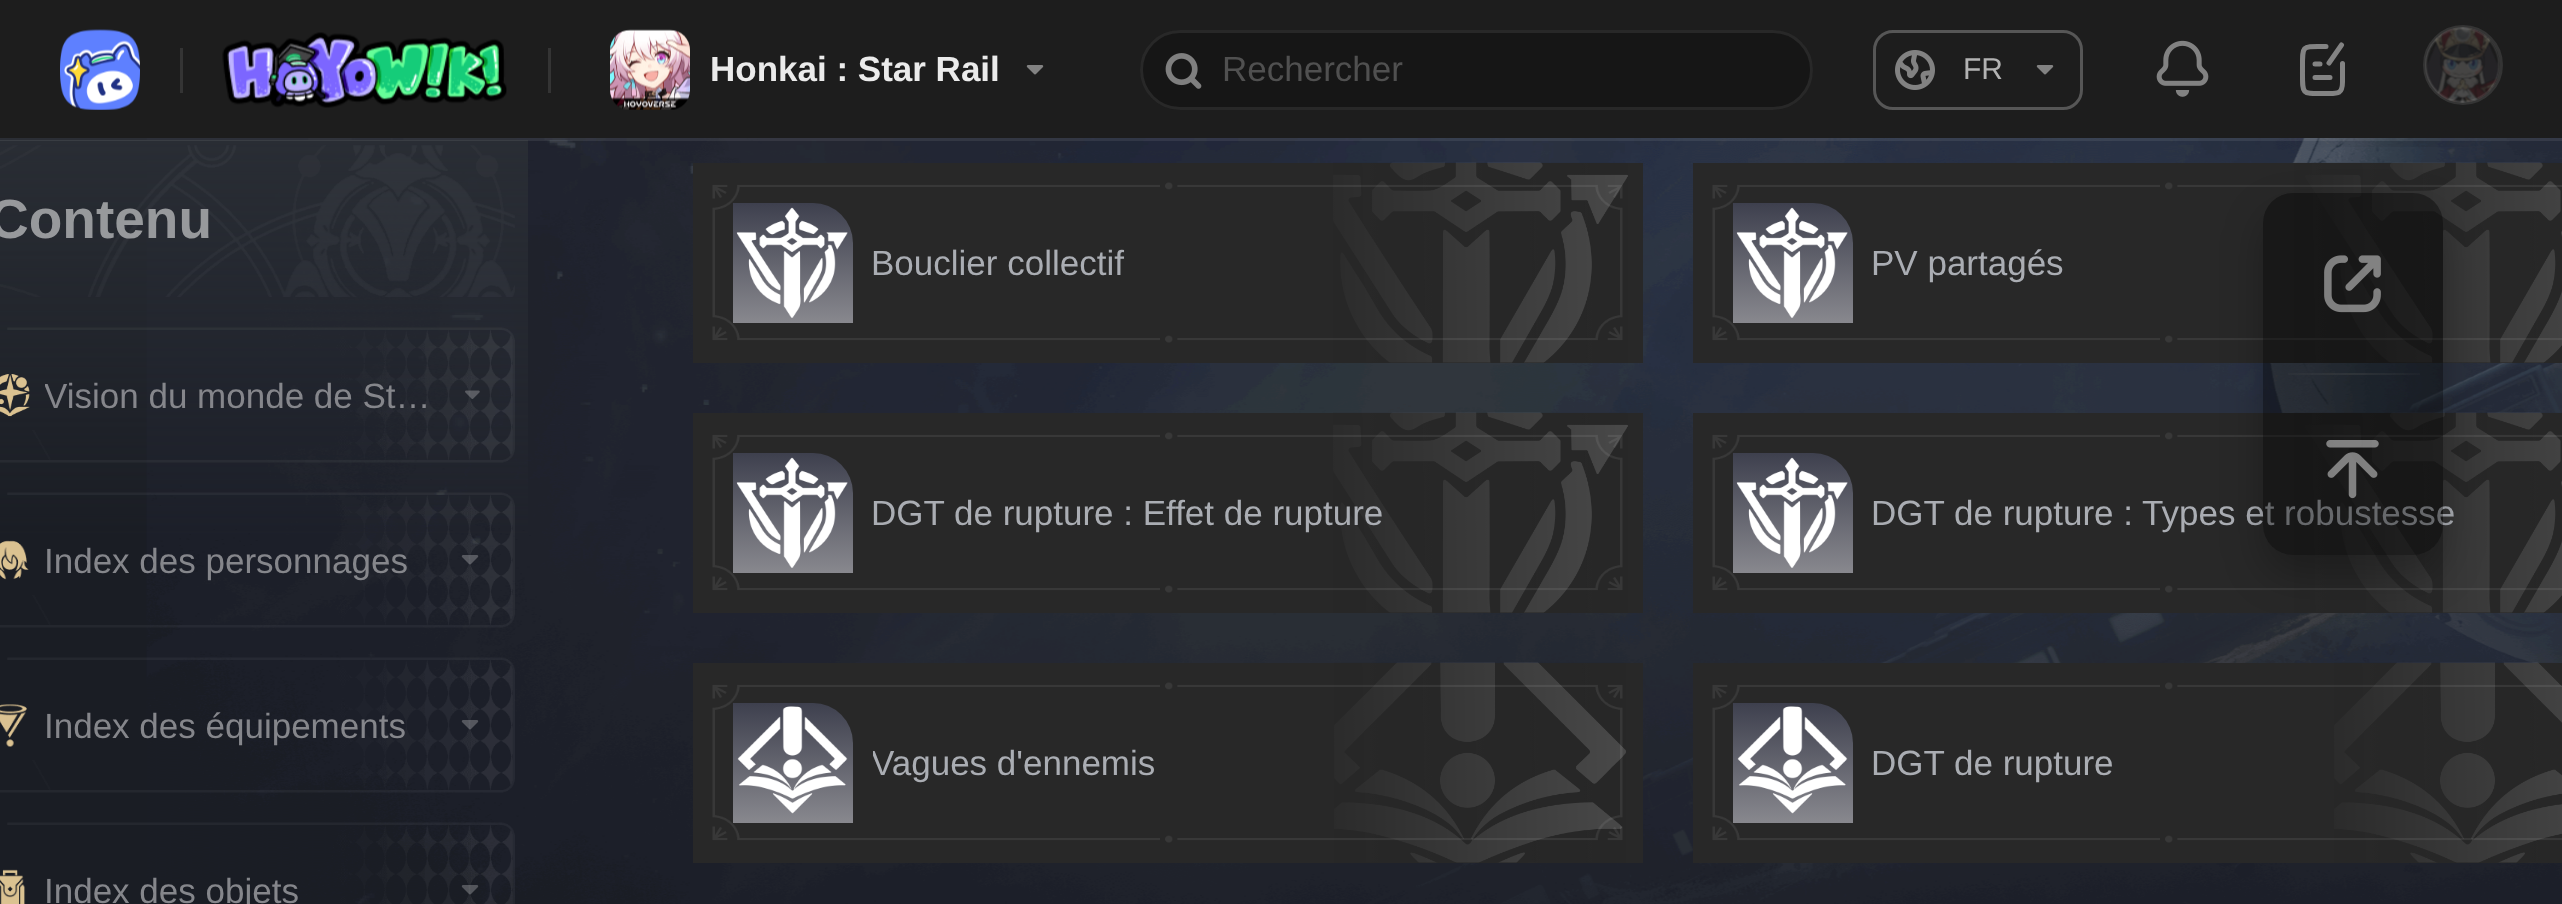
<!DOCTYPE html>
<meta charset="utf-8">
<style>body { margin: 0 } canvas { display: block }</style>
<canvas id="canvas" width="2562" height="904"></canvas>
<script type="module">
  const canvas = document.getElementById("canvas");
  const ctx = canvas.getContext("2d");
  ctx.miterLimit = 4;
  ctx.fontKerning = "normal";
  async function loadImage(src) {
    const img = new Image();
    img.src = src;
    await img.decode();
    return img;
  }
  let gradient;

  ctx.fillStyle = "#ffffff";
  ctx.fillRect(0, 0, 2562, 904);
  ctx.drawImage(await loadImage("img9.png"), 0, 138, 2562, 766);
  ctx.drawImage(await loadImage("img23.png"), 2317, 138, 159, 9);
  ctx.fillStyle = "rgba(255, 255, 255, 0.08)";
  ctx.fillRect(0, 138, 2562, 3);
  ctx.fillStyle = "#1d1d1d";
  ctx.fillRect(0, 0, 2562, 138);
  ctx.drawImage(await loadImage("img1.png"), 60, 29, 80, 81);
  ctx.fillStyle = "#343434";
  ctx.fillRect(180, 48, 3, 45);
  ctx.drawImage(await loadImage("img2.png"), 222, 32, 285, 76);
  ctx.fillRect(548, 48, 3, 45);
  ctx.drawImage(await loadImage("img3.png"), 610, 29, 80, 81);
  ctx.font = "bold 35px Liberation Sans";
  ctx.fillStyle = "#ebebeb";
  ctx.fillText("Honkai : Star Rail", 710, 81);
  ctx.drawImage(await loadImage("img4.png"), 1026, 65, 18, 10);
  ctx.fillStyle = "#161616";
  ctx.beginPath();
  ctx.roundRect(1140, 30, 673, 80, 40);
  ctx.fill();
  ctx.beginPath();
  ctx.roundRect(1141.5, 31.5, 670, 77, 38.5);
  ctx.strokeStyle = "rgba(255, 255, 255, 0.08)";
  ctx.lineWidth = 3;
  ctx.stroke();
  ctx.drawImage(await loadImage("img5.png"), 1165, 53, 37, 36);
  ctx.font = "35px Liberation Sans";
  ctx.fillStyle = "#505050";
  ctx.fillText("Rechercher", 1222, 81);
  ctx.beginPath();
  ctx.roundRect(1874.5, 31.5, 207, 77, 18.5);
  ctx.strokeStyle = "#565656";
  ctx.stroke();
  ctx.drawImage(await loadImage("img6.png"), 1895, 50, 40, 40);
  ctx.font = "30px Liberation Sans";
  ctx.fillStyle = "#b2b2b2";
  ctx.fillText("FR", 1963, 79);
  ctx.drawImage(await loadImage("img4.png"), 2036, 65, 18, 10);
  ctx.drawImage(await loadImage("img7.png"), 2156, 40, 53, 57);
  ctx.beginPath();
  ctx.moveTo(2326, 46.5);
  ctx.bezierCurveTo(2301, 46.5, 2302.5, 44, 2302.5, 70);
  ctx.bezierCurveTo(2302.5, 96, 2301, 93.5, 2326.5, 93.5);
  ctx.bezierCurveTo(2337.5, 93.5, 2342.5, 94.5, 2342.5, 82);
  ctx.lineTo(2342.5, 63.5);
  ctx.moveTo(2315, 64);
  ctx.lineTo(2320, 64);
  ctx.moveTo(2315, 77.5);
  ctx.lineTo(2330, 77.5);
  ctx.strokeStyle = "#838383";
  ctx.lineWidth = 5;
  ctx.lineCap = "round";
  ctx.stroke();
  ctx.beginPath();
  ctx.moveTo(2341.5, 45);
  ctx.lineTo(2329, 63);
  ctx.lineJoin = "round";
  ctx.stroke();
  ctx.beginPath();
  ctx.arc(2463, 65, 38.5, 0, Math.PI * 2);
  ctx.strokeStyle = "#343434";
  ctx.lineWidth = 3;
  ctx.stroke();
  ctx.drawImage(await loadImage("img8.png"), 2425, 27, 75, 76);
  ctx.drawImage(await loadImage("img10.png"), 0, 145, 515, 152);
  ctx.font = "bold 55px Liberation Sans";
  ctx.fillStyle = "#97999c";
  ctx.fillText("Contenu", -11, 238);
  ctx.drawImage(await loadImage("img11.png"), 0, 327, 515, 136);
  ctx.drawImage(await loadImage("img12.png"), 0, 374, 30, 43);
  ctx.save();
  ctx.beginPath();
  ctx.rect(45, 370, 405, 50);
  ctx.clip();
  ctx.font = "35px Liberation Sans";
  ctx.fillStyle = "#85868b";
  ctx.fillText("Vision du monde de St…", 44, 408);
  ctx.restore();
  ctx.drawImage(await loadImage("img13.png"), 465, 390, 15, 9);
  ctx.drawImage(await loadImage("img14.png"), 0, 492, 515, 136);
  ctx.drawImage(await loadImage("img15.png"), 0, 540, 29, 40);
  ctx.font = "35px Liberation Sans";
  ctx.fillStyle = "#85868b";
  ctx.fillText("Index des personnages", 44, 573);
  ctx.drawImage(await loadImage("img16.png"), 461, 555, 18, 10);
  ctx.drawImage(await loadImage("img17.png"), 0, 657, 515, 136);
  ctx.drawImage(await loadImage("img18.png"), 0, 704, 27, 43);
  ctx.fillText("Index des équipements", 44, 738);
  ctx.drawImage(await loadImage("img19.png"), 461, 720, 18, 10);
  ctx.drawImage(await loadImage("img20.png"), 7, 822, 508, 82);
  ctx.drawImage(await loadImage("img21.png"), 0, 869, 26, 35);
  ctx.fillText("Index des objets", 44, 903);
  ctx.drawImage(await loadImage("img22.png"), 461, 885, 18, 10);
  ctx.fillStyle = "#282828";
  ctx.fillRect(1693, 163, 869, 200);
  ctx.drawImage(await loadImage("img29.png"), 2294, 162, 268, 201);
  gradient = ctx.createLinearGradient(1793, 203, 1793, 323);
  gradient.addColorStop(0, "#3e404e");
  gradient.addColorStop(1, "#88888e");
  ctx.fillStyle = gradient;
  ctx.beginPath();
  ctx.roundRect(1733, 203, 120, 120, [0, 40, 0, 0]);
  ctx.fill();
  ctx.drawImage(await loadImage("img28.png"), 1736, 207, 112, 111);
  ctx.fillStyle = "#aaadb3";
  ctx.fillText("PV partagés", 1871, 275);
  ctx.drawImage(await loadImage("img30.png"), 1712, 182, 850, 161);
  ctx.fillStyle = "#282828";
  ctx.fillRect(1693, 413, 869, 200);
  ctx.drawImage(await loadImage("img33.png"), 2294, 412, 268, 201);
  gradient = ctx.createLinearGradient(1793, 453, 1793, 573);
  gradient.addColorStop(0, "#3e404e");
  gradient.addColorStop(1, "#88888e");
  ctx.fillStyle = gradient;
  ctx.beginPath();
  ctx.roundRect(1733, 453, 120, 120, [0, 40, 0, 0]);
  ctx.fill();
  ctx.drawImage(await loadImage("img28.png"), 1736, 457, 112, 111);
  ctx.fillStyle = "#aaadb3";
  ctx.fillText("DGT de rupture : Types et robustesse", 1871, 525);
  ctx.drawImage(await loadImage("img34.png"), 1712, 432, 850, 161);
  ctx.save();
  ctx.beginPath();
  ctx.moveTo(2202, 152);
  ctx.lineTo(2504, 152);
  ctx.lineTo(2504, 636);
  ctx.lineTo(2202, 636);
  ctx.closePath();
  ctx.moveTo(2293, 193);
  ctx.lineTo(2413, 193);
  ctx.bezierCurveTo(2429.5, 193, 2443, 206.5, 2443, 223);
  ctx.lineTo(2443, 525);
  ctx.bezierCurveTo(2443, 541.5, 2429.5, 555, 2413, 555);
  ctx.lineTo(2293, 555);
  ctx.bezierCurveTo(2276.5, 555, 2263, 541.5, 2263, 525);
  ctx.lineTo(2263, 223);
  ctx.bezierCurveTo(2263, 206.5, 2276.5, 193, 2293, 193);
  ctx.closePath();
  ctx.clip("evenodd");
  ctx.fillStyle = "rgba(0, 0, 0, 0.25)";
  ctx.filter = "blur(20px)";
  ctx.beginPath();
  ctx.roundRect(2263, 213, 180, 362, 30);
  ctx.fill();
  ctx.filter = "none";
  ctx.restore();
  ctx.fillStyle = "rgba(0, 0, 0, 0.4)";
  ctx.beginPath();
  ctx.roundRect(2263, 193, 180, 362, 30);
  ctx.fill();
  ctx.drawImage(await loadImage("img24.png"), 2324, 255, 57, 58);
  gradient = ctx.createLinearGradient(2443, 374, 2263, 374);
  gradient.addColorStop(0, "rgba(229, 216, 189, 0)");
  gradient.addColorStop(0.48, "rgba(229, 216, 189, 0.08)");
  gradient.addColorStop(1, "rgba(229, 216, 189, 0)");
  ctx.fillStyle = gradient;
  ctx.fillRect(2288, 373, 132, 2);
  ctx.drawImage(await loadImage("img25.png"), 2326, 440, 53, 59);
  ctx.fillStyle = "#282828";
  ctx.fillRect(693, 163, 950, 200);
  ctx.drawImage(await loadImage("img26.png"), 1333, 162, 295, 201);
  gradient = ctx.createLinearGradient(793, 203, 793, 323);
  gradient.addColorStop(0, "#3e404e");
  gradient.addColorStop(1, "#88888e");
  ctx.fillStyle = gradient;
  ctx.beginPath();
  ctx.roundRect(733, 203, 120, 120, [0, 40, 0, 0]);
  ctx.fill();
  ctx.drawImage(await loadImage("img28.png"), 736, 207, 112, 111);
  ctx.fillStyle = "#aaadb3";
  ctx.fillText("Bouclier collectif", 871, 275);
  ctx.drawImage(await loadImage("img27.png"), 712, 182, 911, 161);
  ctx.fillStyle = "#282828";
  ctx.fillRect(693, 413, 950, 200);
  ctx.drawImage(await loadImage("img31.png"), 1333, 412, 295, 201);
  gradient = ctx.createLinearGradient(793, 453, 793, 573);
  gradient.addColorStop(0, "#3e404e");
  gradient.addColorStop(1, "#88888e");
  ctx.fillStyle = gradient;
  ctx.beginPath();
  ctx.roundRect(733, 453, 120, 120, [0, 40, 0, 0]);
  ctx.fill();
  ctx.drawImage(await loadImage("img28.png"), 736, 457, 112, 111);
  ctx.fillStyle = "#aaadb3";
  ctx.fillText("DGT de rupture : Effet de rupture", 871, 525);
  ctx.drawImage(await loadImage("img32.png"), 712, 432, 911, 161);
  ctx.fillStyle = "#282828";
  ctx.fillRect(693, 663, 950, 200);
  ctx.drawImage(await loadImage("img35.png"), 1334, 662, 292, 201);
  gradient = ctx.createLinearGradient(793, 703, 793, 823);
  gradient.addColorStop(0, "#3e404e");
  gradient.addColorStop(1, "#88888e");
  ctx.fillStyle = gradient;
  ctx.beginPath();
  ctx.roundRect(733, 703, 120, 120, [0, 40, 0, 0]);
  ctx.fill();
  ctx.drawImage(await loadImage("img37.png"), 737, 706, 111, 108);
  ctx.save();
  ctx.beginPath();
  ctx.rect(873, 738, 720, 50);
  ctx.clip();
  ctx.fillStyle = "#aaadb3";
  ctx.fillText("Vagues d'ennemis", 871, 775);
  ctx.restore();
  ctx.drawImage(await loadImage("img36.png"), 712, 682, 911, 161);
  ctx.fillStyle = "#282828";
  ctx.fillRect(1693, 663, 869, 200);
  ctx.drawImage(await loadImage("img38.png"), 2334, 662, 228, 201);
  gradient = ctx.createLinearGradient(1793, 703, 1793, 823);
  gradient.addColorStop(0, "#3e404e");
  gradient.addColorStop(1, "#88888e");
  ctx.fillStyle = gradient;
  ctx.beginPath();
  ctx.roundRect(1733, 703, 120, 120, [0, 40, 0, 0]);
  ctx.fill();
  ctx.drawImage(await loadImage("img37.png"), 1737, 706, 111, 108);
  ctx.fillStyle = "#aaadb3";
  ctx.fillText("DGT de rupture", 1871, 775);
  ctx.drawImage(await loadImage("img39.png"), 1712, 682, 850, 161);
</script>
